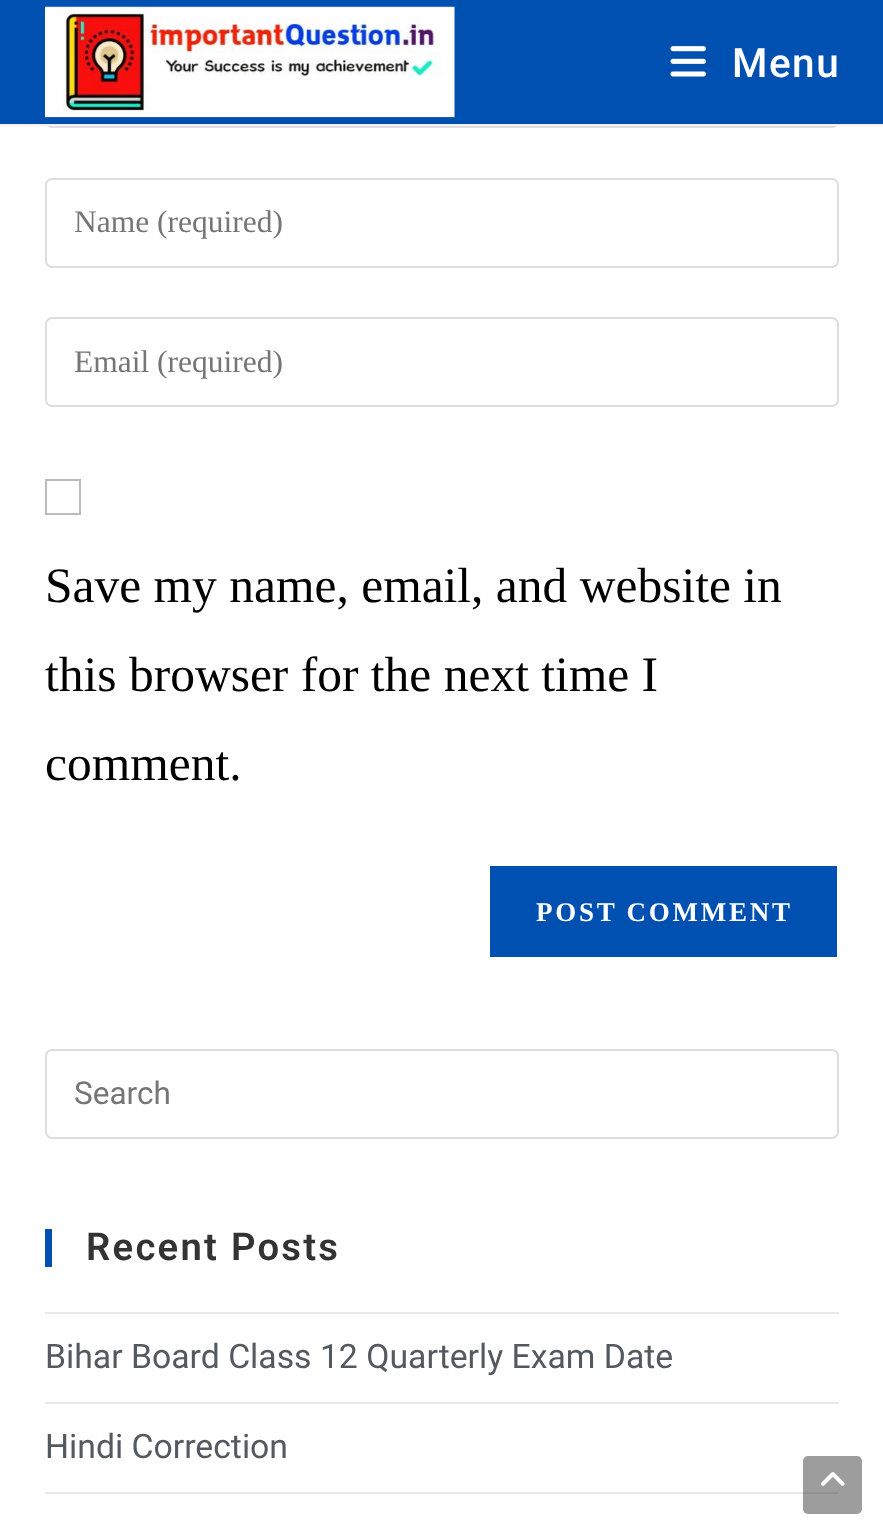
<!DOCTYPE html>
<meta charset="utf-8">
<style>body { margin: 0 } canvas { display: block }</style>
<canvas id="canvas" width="883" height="1536"></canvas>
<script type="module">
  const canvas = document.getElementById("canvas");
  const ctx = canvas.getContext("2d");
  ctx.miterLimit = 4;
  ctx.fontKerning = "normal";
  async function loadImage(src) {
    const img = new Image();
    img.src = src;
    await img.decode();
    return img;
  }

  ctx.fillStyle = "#ffffff";
  ctx.fillRect(0, 0, 883, 1536);
  ctx.beginPath();
  ctx.roundRect(46, -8, 792, 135, 6);
  ctx.strokeStyle = "#dddddd";
  ctx.lineWidth = 2;
  ctx.stroke();
  ctx.fillStyle = "#0050b2";
  ctx.fillRect(0, 0, 883, 124);
  ctx.fillStyle = "#f1f1f1";
  ctx.fillRect(0, 124, 883, 2);
  ctx.drawImage(await loadImage("img1.png"), 45, 6, 410, 112);
  ctx.drawImage(await loadImage("img2.png"), 670, 46, 36, 31);
  ctx.letterSpacing = "1.5px";
  ctx.font = "500 40.5px Roboto";
  ctx.fillStyle = "#ffffff";
  ctx.fillText("Menu", 732, 77);
  ctx.beginPath();
  ctx.roundRect(46, 179, 792, 88, 6);
  ctx.stroke();
  ctx.letterSpacing = "0px";
  ctx.font = "31.5px Liberation Serif";
  ctx.fillStyle = "#757575";
  ctx.fillText("Name (required)", 74, 232);
  ctx.beginPath();
  ctx.roundRect(46, 318, 792, 88, 6);
  ctx.stroke();
  ctx.fillText("Email (required)", 74, 372);
  ctx.strokeStyle = "#bbbbbb";
  ctx.strokeRect(46, 480, 34, 34);
  ctx.font = "49.5px Liberation Serif";
  ctx.fillStyle = "#000000";
  ctx.fillText("Save my name, email, and website in", 45, 602);
  ctx.fillText("this browser for the next time I", 45, 691);
  ctx.fillText("comment.", 45, 780);
  ctx.fillStyle = "#0050b2";
  ctx.fillRect(490, 866, 347, 91);
  ctx.letterSpacing = "2.75px";
  ctx.font = "bold 27px Liberation Serif";
  ctx.fillStyle = "#ffffff";
  ctx.fillText("POST COMMENT", 536, 921);
  ctx.beginPath();
  ctx.roundRect(46, 1050, 792, 88, 6);
  ctx.strokeStyle = "#dddddd";
  ctx.stroke();
  ctx.letterSpacing = "0px";
  ctx.font = "31.5px Roboto";
  ctx.fillStyle = "#757575";
  ctx.fillText("Search", 74, 1104);
  ctx.fillStyle = "#0050b2";
  ctx.fillRect(45, 1229, 7, 38);
  ctx.letterSpacing = "2.25px";
  ctx.font = "600 38.25px Roboto";
  ctx.fillStyle = "#333333";
  ctx.fillText("Recent Posts", 86, 1260);
  ctx.fillStyle = "#e9e9e9";
  ctx.fillRect(45, 1312, 794, 2);
  ctx.fillRect(45, 1402, 794, 2);
  ctx.letterSpacing = "0px";
  ctx.font = "33.75px Roboto";
  ctx.fillStyle = "#54595f";
  ctx.fillText("Bihar Board Class 12 Quarterly Exam Date", 45, 1368);
  ctx.fillStyle = "#e9e9e9";
  ctx.fillRect(45, 1492, 794, 2);
  ctx.fillStyle = "#54595f";
  ctx.fillText("Hindi Correction", 45, 1458);
  ctx.fillStyle = "rgba(10, 10, 10, 0.4)";
  ctx.beginPath();
  ctx.roundRect(803, 1456, 59, 58, 5);
  ctx.fill();
  ctx.drawImage(await loadImage("img3.png"), 821, 1472, 24, 14);
</script>
